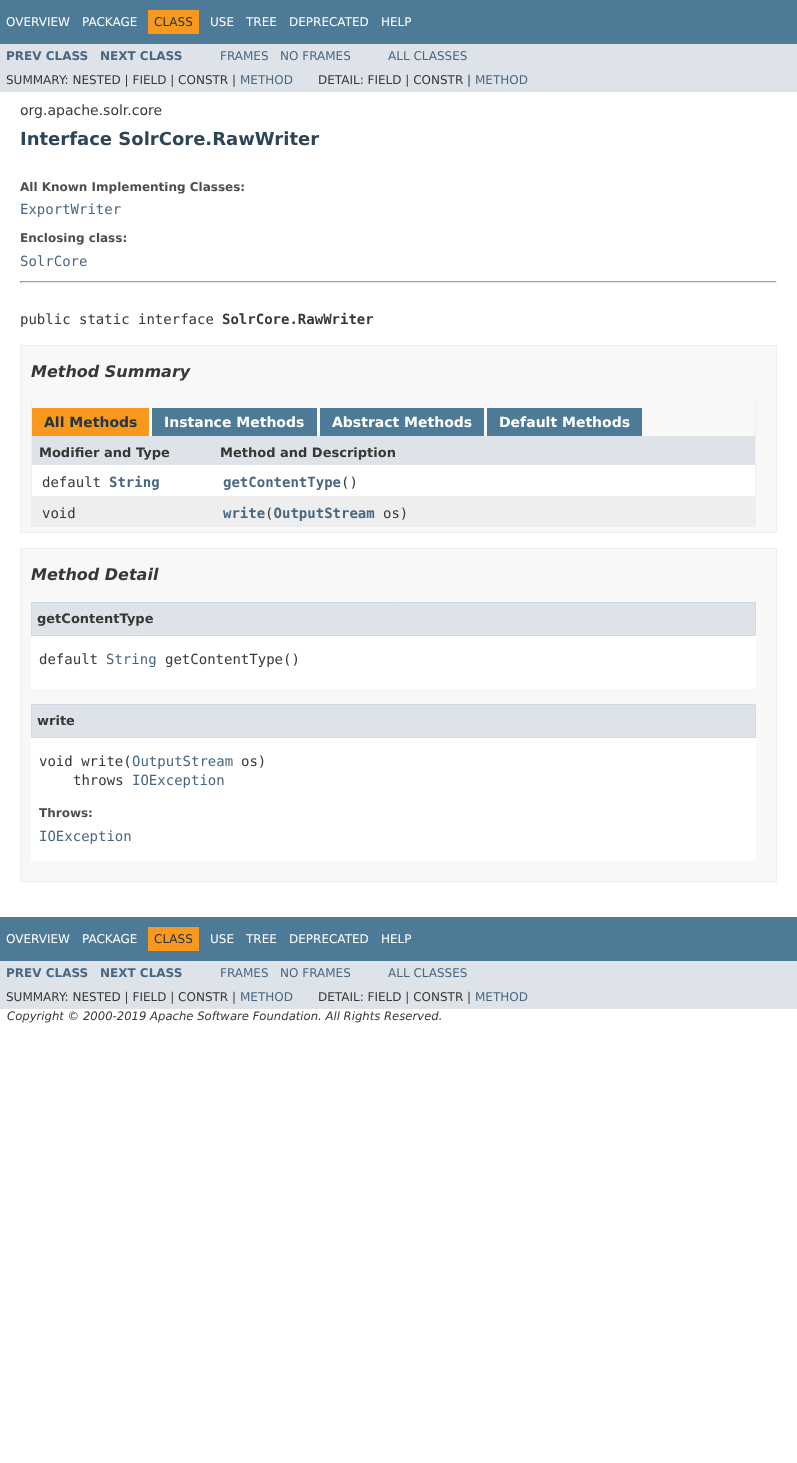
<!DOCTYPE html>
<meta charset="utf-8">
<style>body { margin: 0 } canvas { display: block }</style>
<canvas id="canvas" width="797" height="1463"></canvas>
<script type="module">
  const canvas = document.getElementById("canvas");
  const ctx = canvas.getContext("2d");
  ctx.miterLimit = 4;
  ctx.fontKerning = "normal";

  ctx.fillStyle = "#ffffff";
  ctx.fillRect(0, 0, 797, 1463);
  ctx.fillStyle = "#4d7a97";
  ctx.fillRect(0, 0, 797, 44);
  ctx.font = "12px DejaVu Sans";
  ctx.fillStyle = "#ffffff";
  ctx.fillText("OVERVIEW", 6, 26);
  ctx.fillText("PACKAGE", 82, 26);
  ctx.fillStyle = "#f8981d";
  ctx.fillRect(148, 10, 51, 24);
  ctx.fillStyle = "#253441";
  ctx.fillText("CLASS", 154, 26);
  ctx.fillStyle = "#ffffff";
  ctx.fillText("USE", 210, 26);
  ctx.fillText("TREE", 246, 26);
  ctx.fillText("DEPRECATED", 289, 26);
  ctx.fillText("HELP", 381, 26);
  ctx.fillStyle = "#dee3e9";
  ctx.fillRect(0, 44, 797, 48);
  ctx.font = "bold 12px DejaVu Sans";
  ctx.fillStyle = "#4a6782";
  ctx.fillText("PREV CLASS", 6, 60);
  ctx.fillText("NEXT CLASS", 100, 60);
  ctx.font = "12px DejaVu Sans";
  ctx.fillText("FRAMES", 220, 60);
  ctx.fillText("NO FRAMES", 280, 60);
  ctx.fillText("ALL CLASSES", 388, 60);
  ctx.fillStyle = "#353833";
  ctx.fillText("SUMMARY: NESTED | FIELD | CONSTR |", 6, 84);
  ctx.fillStyle = "#4a6782";
  ctx.fillText("METHOD", 240, 84);
  ctx.fillStyle = "#353833";
  ctx.fillText("DETAIL: FIELD | CONSTR |", 318, 84);
  ctx.fillStyle = "#4a6782";
  ctx.fillText("METHOD", 475, 84);
  ctx.font = "14px DejaVu Sans";
  ctx.fillStyle = "#353833";
  ctx.fillText("org.apache.solr.core", 20, 115);
  ctx.font = "bold 18px DejaVu Sans";
  ctx.fillStyle = "#2c4557";
  ctx.fillText("Interface SolrCore.RawWriter", 20, 145);
  ctx.font = "bold 12px DejaVu Sans";
  ctx.fillStyle = "#4e4e4e";
  ctx.fillText("All Known Implementing Classes:", 20, 191);
  ctx.font = "14px DejaVu Sans Mono";
  ctx.fillStyle = "#4a6782";
  ctx.fillText("ExportWriter", 20, 214);
  ctx.font = "bold 12px DejaVu Sans";
  ctx.fillStyle = "#4e4e4e";
  ctx.fillText("Enclosing class:", 20, 242);
  ctx.font = "14px DejaVu Sans Mono";
  ctx.fillStyle = "#4a6782";
  ctx.fillText("SolrCore", 20, 266);
  ctx.fillStyle = "#9f9f9f";
  ctx.fillRect(20, 281, 757, 1);
  ctx.fillStyle = "#eeeeee";
  ctx.fillRect(776, 281, 1, 2);
  ctx.fillRect(20, 282, 757, 1);
  ctx.fillStyle = "#9f9f9f";
  ctx.fillRect(20, 281, 1, 2);
  ctx.fillStyle = "#353833";
  ctx.fillText("public static interface", 20, 324);
  ctx.font = "bold 14px DejaVu Sans Mono";
  ctx.fillText("SolrCore.RawWriter", 222, 324);
  ctx.fillStyle = "#f8f8f8";
  ctx.beginPath();
  ctx.rect(20.5, 345.5, 756, 187);
  ctx.fill();
  ctx.strokeStyle = "#ededed";
  ctx.stroke();
  ctx.font = "italic bold 16px DejaVu Sans";
  ctx.fillStyle = "#353833";
  ctx.fillText("Method Summary", 31, 377);
  ctx.fillStyle = "#eeeeee";
  ctx.fillRect(755, 398, 1, 129);
  ctx.fillRect(31, 526, 725, 1);
  ctx.fillRect(31, 398, 1, 129);
  ctx.fillStyle = "#f8981d";
  ctx.fillRect(32, 408, 117, 28);
  ctx.font = "bold 14px DejaVu Sans";
  ctx.fillStyle = "#253441";
  ctx.fillText("All Methods", 44, 427);
  ctx.fillStyle = "#4d7a97";
  ctx.fillRect(152, 408, 165, 28);
  ctx.fillStyle = "#ffffff";
  ctx.fillText("Instance Methods", 164, 427);
  ctx.fillStyle = "#4d7a97";
  ctx.fillRect(320, 408, 164, 28);
  ctx.fillStyle = "#ffffff";
  ctx.fillText("Abstract Methods", 332, 427);
  ctx.fillStyle = "#4d7a97";
  ctx.fillRect(487, 408, 155, 28);
  ctx.fillStyle = "#ffffff";
  ctx.fillText("Default Methods", 499, 427);
  ctx.fillStyle = "#dee3e9";
  ctx.fillRect(32, 436, 723, 29);
  ctx.font = "bold 13px DejaVu Sans";
  ctx.fillStyle = "#353833";
  ctx.fillText("Modifier and Type", 39, 457);
  ctx.fillText("Method and Description", 220, 457);
  ctx.fillStyle = "#ffffff";
  ctx.fillRect(32, 465, 723, 31);
  ctx.font = "14px DejaVu Sans Mono";
  ctx.fillStyle = "#353833";
  ctx.fillText("default", 42, 487);
  ctx.font = "bold 14px DejaVu Sans Mono";
  ctx.fillStyle = "#4a6782";
  ctx.fillText("String", 109, 487);
  ctx.fillText("getContentType", 223, 487);
  ctx.font = "14px DejaVu Sans Mono";
  ctx.fillStyle = "#353833";
  ctx.fillText("()", 341, 487);
  ctx.fillStyle = "#eeeeef";
  ctx.fillRect(32, 496, 723, 30);
  ctx.fillStyle = "#353833";
  ctx.fillText("void", 42, 518);
  ctx.font = "bold 14px DejaVu Sans Mono";
  ctx.fillStyle = "#4a6782";
  ctx.fillText("write OutputStream", 223, 518);
  ctx.font = "14px DejaVu Sans Mono";
  ctx.fillStyle = "#353833";
  ctx.fillText("(", 265, 518);
  ctx.fillText("os)", 383, 518);
  ctx.fillStyle = "#f8f8f8";
  ctx.beginPath();
  ctx.rect(20.5, 548.5, 756, 333);
  ctx.fill();
  ctx.stroke();
  ctx.font = "italic bold 16px DejaVu Sans";
  ctx.fillStyle = "#353833";
  ctx.fillText("Method Detail", 31, 580);
  ctx.fillStyle = "#ffffff";
  ctx.fillRect(31, 636, 725, 53);
  ctx.fillStyle = "#dee3e9";
  ctx.beginPath();
  ctx.rect(31.5, 602.5, 724, 33);
  ctx.fill();
  ctx.strokeStyle = "#d0d9e0";
  ctx.stroke();
  ctx.font = "bold 13px DejaVu Sans";
  ctx.fillStyle = "#353833";
  ctx.fillText("getContentType", 37, 623);
  ctx.font = "14px DejaVu Sans Mono";
  ctx.fillText("default", 39, 664);
  ctx.fillStyle = "#4a6782";
  ctx.fillText("String", 106, 664);
  ctx.fillStyle = "#353833";
  ctx.fillText("getContentType()", 165, 664);
  ctx.fillStyle = "#ffffff";
  ctx.fillRect(31, 738, 725, 123);
  ctx.fillStyle = "#dee3e9";
  ctx.beginPath();
  ctx.rect(31.5, 704.5, 724, 33);
  ctx.fill();
  ctx.stroke();
  ctx.font = "bold 13px DejaVu Sans";
  ctx.fillStyle = "#353833";
  ctx.fillText("write", 37, 725);
  ctx.font = "14px DejaVu Sans Mono";
  ctx.fillText("void write(", 39, 766);
  ctx.fillStyle = "#4a6782";
  ctx.fillText("OutputStream", 132, 766);
  ctx.fillStyle = "#353833";
  ctx.fillText("os)", 241, 766);
  ctx.fillText("throws", 73, 785);
  ctx.fillStyle = "#4a6782";
  ctx.fillText("IOException", 132, 785);
  ctx.font = "bold 12px DejaVu Sans";
  ctx.fillStyle = "#4e4e4e";
  ctx.fillText("Throws:", 39, 817);
  ctx.font = "14px DejaVu Sans Mono";
  ctx.fillStyle = "#4a6782";
  ctx.fillText("IOException", 39, 841);
  ctx.fillStyle = "#4d7a97";
  ctx.fillRect(0, 917, 797, 44);
  ctx.font = "12px DejaVu Sans";
  ctx.fillStyle = "#ffffff";
  ctx.fillText("OVERVIEW", 6, 943);
  ctx.fillText("PACKAGE", 82, 943);
  ctx.fillStyle = "#f8981d";
  ctx.fillRect(148, 927, 51, 24);
  ctx.fillStyle = "#253441";
  ctx.fillText("CLASS", 154, 943);
  ctx.fillStyle = "#ffffff";
  ctx.fillText("USE", 210, 943);
  ctx.fillText("TREE", 246, 943);
  ctx.fillText("DEPRECATED", 289, 943);
  ctx.fillText("HELP", 381, 943);
  ctx.fillStyle = "#dee3e9";
  ctx.fillRect(0, 961, 797, 48);
  ctx.font = "bold 12px DejaVu Sans";
  ctx.fillStyle = "#4a6782";
  ctx.fillText("PREV CLASS", 6, 977);
  ctx.fillText("NEXT CLASS", 100, 977);
  ctx.font = "12px DejaVu Sans";
  ctx.fillText("FRAMES", 220, 977);
  ctx.fillText("NO FRAMES", 280, 977);
  ctx.fillText("ALL CLASSES", 388, 977);
  ctx.fillStyle = "#353833";
  ctx.fillText("SUMMARY: NESTED | FIELD | CONSTR |", 6, 1001);
  ctx.fillStyle = "#4a6782";
  ctx.fillText("METHOD", 240, 1001);
  ctx.fillStyle = "#353833";
  ctx.fillText("DETAIL: FIELD | CONSTR |", 318, 1001);
  ctx.fillStyle = "#4a6782";
  ctx.fillText("METHOD", 475, 1001);
  ctx.font = "italic 11.65px DejaVu Sans";
  ctx.fillStyle = "#353833";
  ctx.fillText("Copyright © 2000-2019 Apache Software Foundation. All Rights Reserved.", 7, 1020);
</script>
